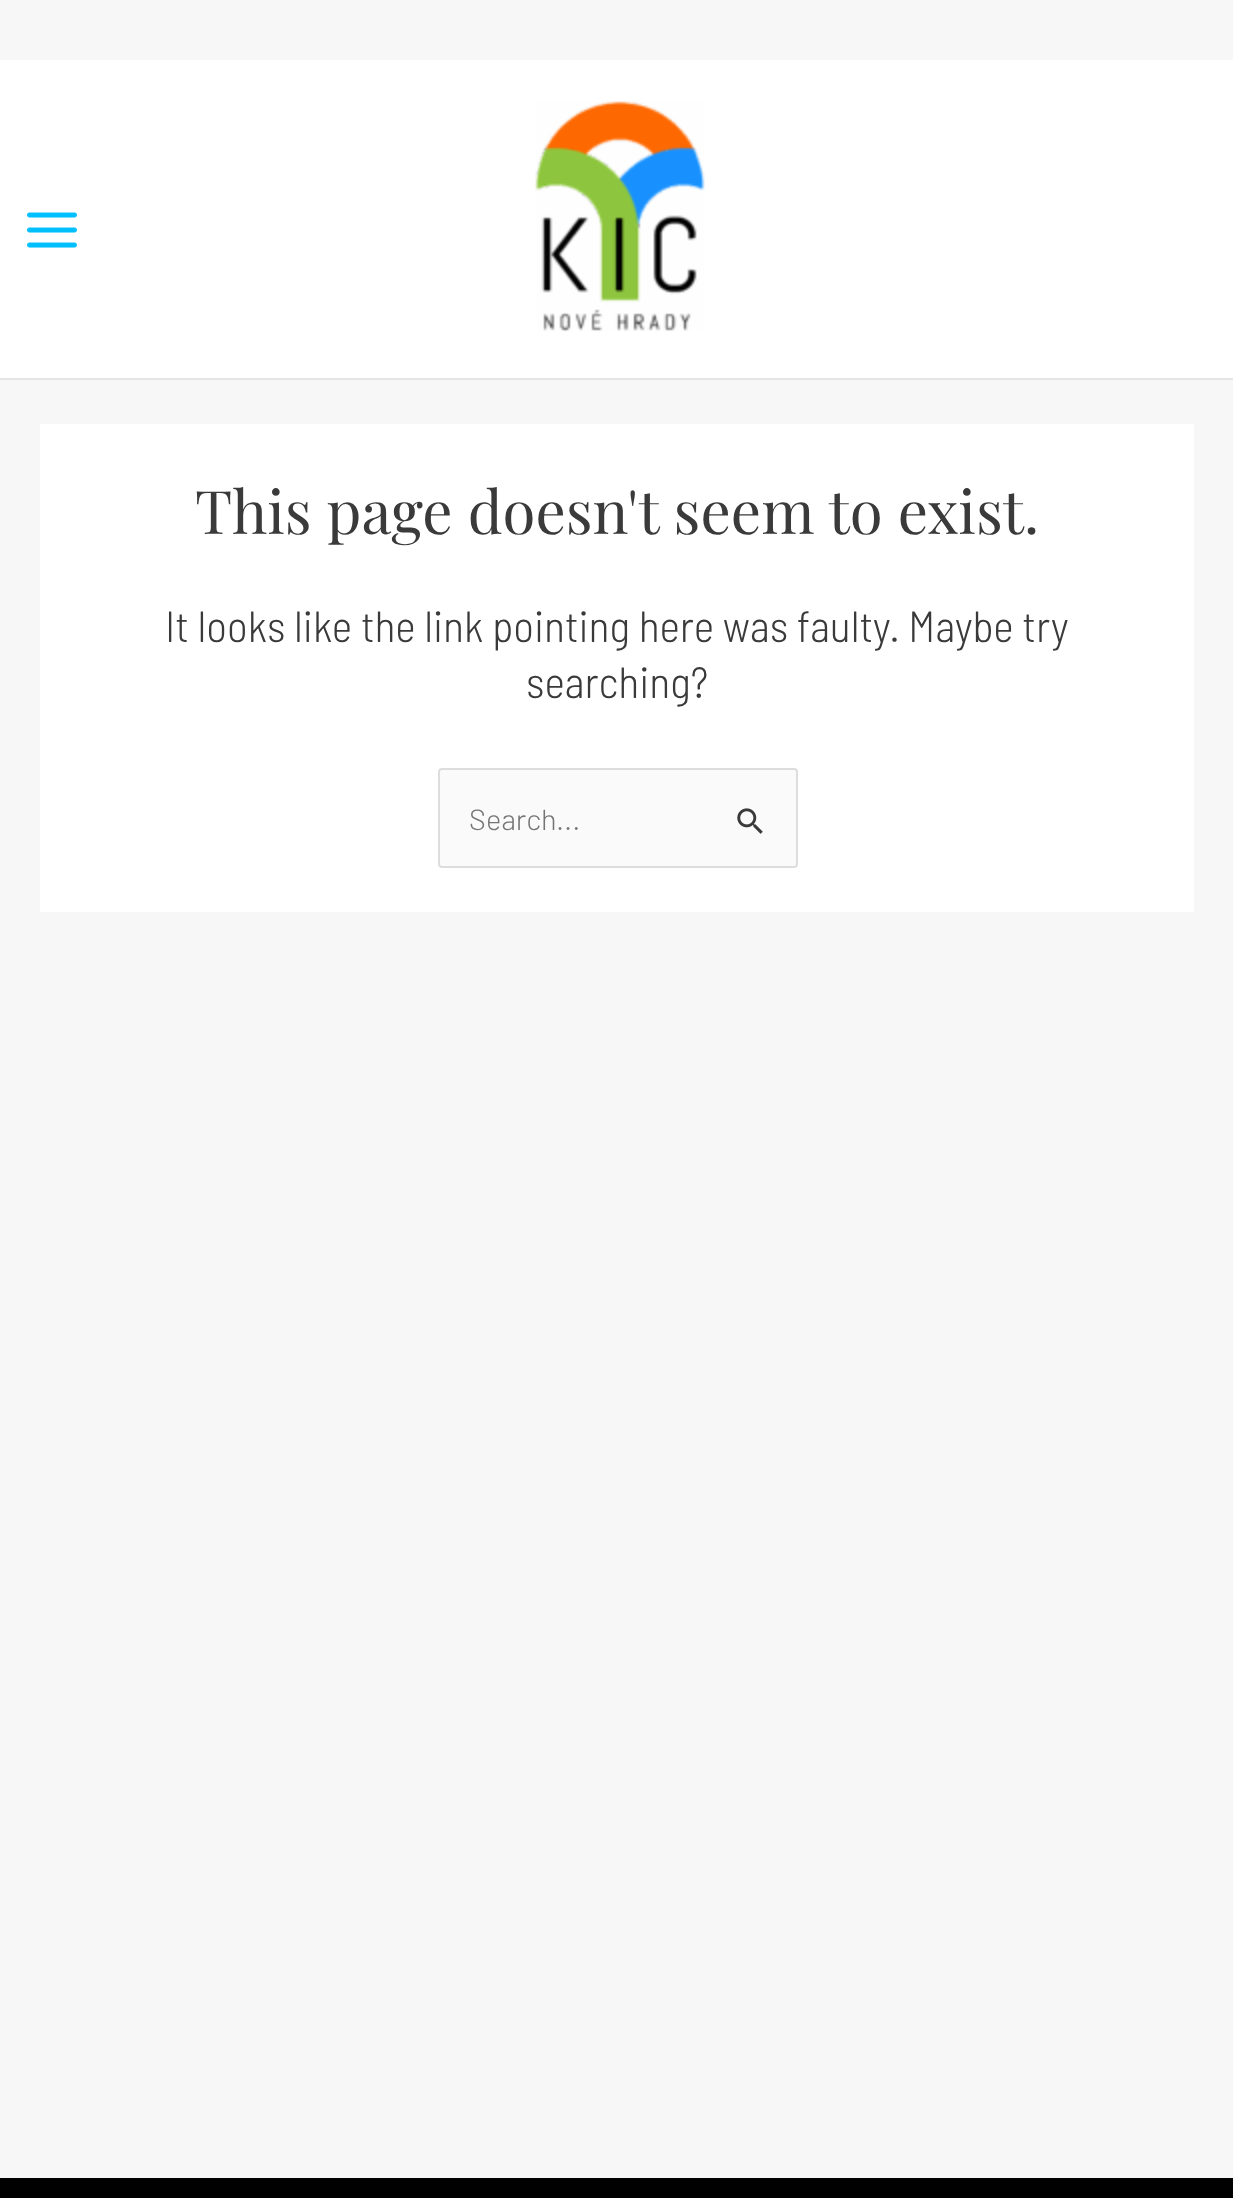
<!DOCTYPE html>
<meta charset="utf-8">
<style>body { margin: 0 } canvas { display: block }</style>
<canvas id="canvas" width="1233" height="2198"></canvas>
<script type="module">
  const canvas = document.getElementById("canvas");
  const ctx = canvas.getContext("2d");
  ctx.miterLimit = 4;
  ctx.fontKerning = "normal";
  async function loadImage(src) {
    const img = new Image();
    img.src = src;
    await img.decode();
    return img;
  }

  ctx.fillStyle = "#f7f7f7";
  ctx.fillRect(0, 0, 1233, 2198);
  ctx.fillStyle = "#ffffff";
  ctx.fillRect(0, 60, 1233, 318);
  ctx.fillStyle = "#e5e5e5";
  ctx.fillRect(0, 378, 1233, 2);
  ctx.drawImage(await loadImage("img1.png"), 27, 212, 50, 36);
  ctx.drawImage(await loadImage("img2.png"), 535, 101, 170, 231);
  ctx.fillStyle = "#ffffff";
  ctx.fillRect(40, 424, 1154, 488);
  ctx.font = "60px Playfair Display";
  ctx.fillStyle = "#3a3a3a";
  ctx.fillText("This page doesn't seem to exist.", 195, 534);
  ctx.font = "300 43.75px Barlow Semi Condensed";
  ctx.fillText("It looks like the link pointing here was faulty. Maybe try", 165, 642);
  ctx.fillText("searching?", 526, 698);
  ctx.fillStyle = "#fafafa";
  ctx.beginPath();
  ctx.roundRect(439, 769, 358, 98, 3);
  ctx.fill();
  ctx.strokeStyle = "#dddddd";
  ctx.lineWidth = 2;
  ctx.stroke();
  ctx.font = "300 29px Barlow";
  ctx.fillStyle = "#757575";
  ctx.fillText("Search...", 469, 830);
  ctx.drawImage(await loadImage("img3.png"), 737, 808, 26, 26);
  ctx.fillStyle = "#010101";
  ctx.fillRect(0, 2178, 1233, 20);
</script>
